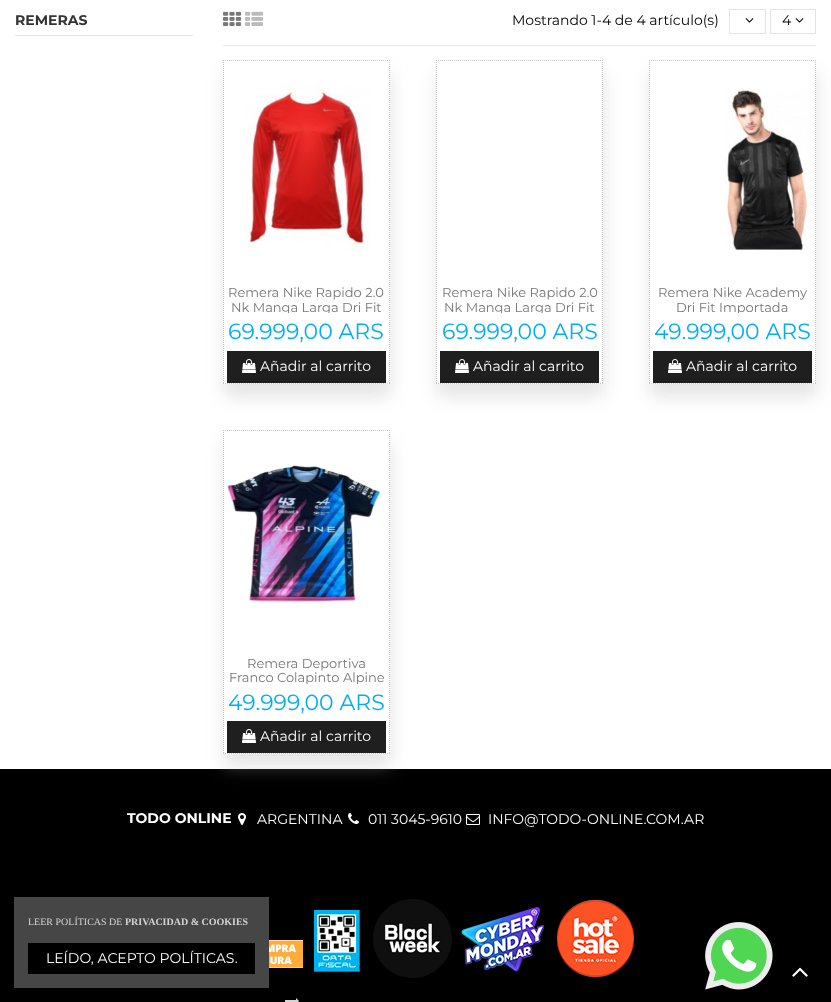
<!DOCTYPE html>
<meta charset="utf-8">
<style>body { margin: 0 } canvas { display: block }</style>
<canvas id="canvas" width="831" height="1002"></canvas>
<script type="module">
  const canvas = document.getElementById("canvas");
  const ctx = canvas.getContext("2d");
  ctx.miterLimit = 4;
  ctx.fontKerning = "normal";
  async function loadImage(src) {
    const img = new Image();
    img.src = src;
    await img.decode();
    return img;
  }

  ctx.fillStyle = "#ffffff";
  ctx.fillRect(0, 0, 831, 1002);
  ctx.fillStyle = "#e3e3e3";
  ctx.fillRect(15, 35, 178, 1);
  ctx.font = "bold 14px Montserrat";
  ctx.fillStyle = "#333333";
  ctx.fillText("REMERAS", 15, 25);
  ctx.fillStyle = "#e8e8e8";
  ctx.fillRect(223, 45, 593, 1);
  ctx.drawImage(await loadImage("img1.png"), 223, 11, 18, 15);
  ctx.drawImage(await loadImage("img2.png"), 245, 11, 18, 15);
  ctx.font = "14px Montserrat";
  ctx.fillStyle = "#000000";
  ctx.fillText("Mostrando 1-4 de 4 artículo(s)", 512, 25);
  ctx.strokeStyle = "#e3e3e3";
  ctx.strokeRect(729.5, 9.5, 36, 24);
  ctx.drawImage(await loadImage("img3.png"), 745, 18, 9, 5);
  ctx.strokeRect(770.5, 9.5, 45, 24);
  ctx.fillText("4", 782, 25);
  ctx.drawImage(await loadImage("img3.png"), 795, 18, 9, 5);
  ctx.save();
  ctx.beginPath();
  ctx.moveTo(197, 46);
  ctx.lineTo(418, 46);
  ctx.lineTo(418, 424);
  ctx.lineTo(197, 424);
  ctx.closePath();
  ctx.moveTo(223, 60);
  ctx.lineTo(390, 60);
  ctx.lineTo(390, 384);
  ctx.lineTo(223, 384);
  ctx.closePath();
  ctx.clip("evenodd");
  ctx.fillStyle = "rgba(184, 184, 184, 0.36)";
  ctx.filter = "blur(8.5px)";
  ctx.beginPath();
  ctx.rect(224, 73, 167, 324);
  ctx.fill();
  ctx.filter = "none";
  ctx.restore();
  ctx.beginPath();
  ctx.moveTo(223, 60.5);
  ctx.lineTo(390, 60.5);
  ctx.strokeStyle = "#c7c7c7";
  ctx.setLineDash([1, 1]);
  ctx.stroke();
  ctx.beginPath();
  ctx.moveTo(389.5, 60);
  ctx.lineTo(389.5, 384);
  ctx.stroke();
  ctx.beginPath();
  ctx.moveTo(223, 383.5);
  ctx.lineTo(390, 383.5);
  ctx.stroke();
  ctx.beginPath();
  ctx.moveTo(223.5, 60);
  ctx.lineTo(223.5, 384);
  ctx.stroke();
  ctx.drawImage(await loadImage("img4.png"), 246, 83, 124, 168);
  ctx.font = "13px Montserrat";
  ctx.fillStyle = "#777777";
  ctx.fillText("Remera Nike Rapido 2.0", 228, 297);
  ctx.save();
  ctx.beginPath();
  ctx.rect(224, 285, 165, 28);
  ctx.clip();
  ctx.fillText("Nk Manga Larga Dri Fit", 231, 312);
  ctx.restore();
  ctx.font = "22px Montserrat";
  ctx.fillStyle = "#02aef3";
  ctx.fillText("69.999,00 ARS", 228, 339);
  ctx.fillStyle = "#1f1f1f";
  ctx.fillRect(227, 351, 159, 32);
  ctx.drawImage(await loadImage("img5.png"), 242, 359, 14, 14);
  ctx.font = "14px Montserrat";
  ctx.fillStyle = "#ffffff";
  ctx.fillText("Añadir al carrito", 260, 371);
  ctx.save();
  ctx.beginPath();
  ctx.moveTo(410, 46);
  ctx.lineTo(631, 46);
  ctx.lineTo(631, 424);
  ctx.lineTo(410, 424);
  ctx.closePath();
  ctx.moveTo(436, 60);
  ctx.lineTo(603, 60);
  ctx.lineTo(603, 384);
  ctx.lineTo(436, 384);
  ctx.closePath();
  ctx.clip("evenodd");
  ctx.fillStyle = "rgba(184, 184, 184, 0.36)";
  ctx.filter = "blur(8.5px)";
  ctx.beginPath();
  ctx.rect(437, 73, 167, 324);
  ctx.fill();
  ctx.filter = "none";
  ctx.restore();
  ctx.beginPath();
  ctx.moveTo(436, 60.5);
  ctx.lineTo(603, 60.5);
  ctx.stroke();
  ctx.beginPath();
  ctx.moveTo(602.5, 60);
  ctx.lineTo(602.5, 384);
  ctx.stroke();
  ctx.beginPath();
  ctx.moveTo(436, 383.5);
  ctx.lineTo(603, 383.5);
  ctx.stroke();
  ctx.beginPath();
  ctx.moveTo(436.5, 60);
  ctx.lineTo(436.5, 384);
  ctx.stroke();
  ctx.font = "13px Montserrat";
  ctx.fillStyle = "#777777";
  ctx.fillText("Remera Nike Rapido 2.0", 442, 297);
  ctx.save();
  ctx.beginPath();
  ctx.rect(437, 285, 165, 28);
  ctx.clip();
  ctx.fillText("Nk Manga Larga Dri Fit", 444, 312);
  ctx.restore();
  ctx.font = "22px Montserrat";
  ctx.fillStyle = "#02aef3";
  ctx.fillText("69.999,00 ARS", 442, 339);
  ctx.fillStyle = "#1f1f1f";
  ctx.fillRect(440, 351, 159, 32);
  ctx.drawImage(await loadImage("img5.png"), 455, 359, 14, 14);
  ctx.font = "14px Montserrat";
  ctx.fillStyle = "#ffffff";
  ctx.fillText("Añadir al carrito", 473, 371);
  ctx.save();
  ctx.beginPath();
  ctx.moveTo(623, 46);
  ctx.lineTo(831, 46);
  ctx.lineTo(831, 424);
  ctx.lineTo(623, 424);
  ctx.closePath();
  ctx.moveTo(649, 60);
  ctx.lineTo(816, 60);
  ctx.lineTo(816, 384);
  ctx.lineTo(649, 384);
  ctx.closePath();
  ctx.clip("evenodd");
  ctx.fillStyle = "rgba(184, 184, 184, 0.36)";
  ctx.filter = "blur(8.5px)";
  ctx.beginPath();
  ctx.rect(650, 73, 167, 324);
  ctx.fill();
  ctx.filter = "none";
  ctx.restore();
  ctx.beginPath();
  ctx.moveTo(649, 60.5);
  ctx.lineTo(816, 60.5);
  ctx.stroke();
  ctx.beginPath();
  ctx.moveTo(815.5, 60);
  ctx.lineTo(815.5, 384);
  ctx.stroke();
  ctx.beginPath();
  ctx.moveTo(649, 383.5);
  ctx.lineTo(816, 383.5);
  ctx.stroke();
  ctx.beginPath();
  ctx.moveTo(649.5, 60);
  ctx.lineTo(649.5, 384);
  ctx.stroke();
  ctx.drawImage(await loadImage("img6.png"), 725, 89, 83, 161);
  ctx.font = "13px Montserrat";
  ctx.fillStyle = "#777777";
  ctx.fillText("Remera Nike Academy", 658, 297);
  ctx.save();
  ctx.beginPath();
  ctx.rect(650, 285, 165, 28);
  ctx.clip();
  ctx.fillText("Dri Fit Importada", 676, 312);
  ctx.restore();
  ctx.font = "22px Montserrat";
  ctx.fillStyle = "#02aef3";
  ctx.fillText("49.999,00 ARS", 654, 339);
  ctx.fillStyle = "#1f1f1f";
  ctx.fillRect(653, 351, 159, 32);
  ctx.drawImage(await loadImage("img5.png"), 668, 359, 14, 14);
  ctx.font = "14px Montserrat";
  ctx.fillStyle = "#ffffff";
  ctx.fillText("Añadir al carrito", 686, 371);
  ctx.fillStyle = "#000000";
  ctx.fillRect(0, 769, 831, 233);
  ctx.save();
  ctx.beginPath();
  ctx.moveTo(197, 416);
  ctx.lineTo(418, 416);
  ctx.lineTo(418, 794);
  ctx.lineTo(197, 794);
  ctx.closePath();
  ctx.moveTo(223, 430);
  ctx.lineTo(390, 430);
  ctx.lineTo(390, 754);
  ctx.lineTo(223, 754);
  ctx.closePath();
  ctx.clip("evenodd");
  ctx.fillStyle = "rgba(184, 184, 184, 0.36)";
  ctx.filter = "blur(8.5px)";
  ctx.beginPath();
  ctx.rect(224, 443, 167, 324);
  ctx.fill();
  ctx.filter = "none";
  ctx.restore();
  ctx.beginPath();
  ctx.moveTo(223, 430.5);
  ctx.lineTo(390, 430.5);
  ctx.stroke();
  ctx.beginPath();
  ctx.moveTo(389.5, 430);
  ctx.lineTo(389.5, 754);
  ctx.stroke();
  ctx.beginPath();
  ctx.moveTo(223, 753.5);
  ctx.lineTo(390, 753.5);
  ctx.stroke();
  ctx.beginPath();
  ctx.moveTo(223.5, 430);
  ctx.lineTo(223.5, 754);
  ctx.stroke();
  ctx.drawImage(await loadImage("img7.png"), 227, 465, 153, 137);
  ctx.font = "13px Montserrat";
  ctx.fillStyle = "#777777";
  ctx.fillText("Remera Deportiva", 247, 668);
  ctx.save();
  ctx.beginPath();
  ctx.rect(224, 656, 165, 28);
  ctx.clip();
  ctx.fillText("Franco Colapinto Alpine", 229, 682);
  ctx.restore();
  ctx.font = "22px Montserrat";
  ctx.fillStyle = "#02aef3";
  ctx.fillText("49.999,00 ARS", 228, 710);
  ctx.fillStyle = "#1f1f1f";
  ctx.fillRect(227, 721, 159, 32);
  ctx.drawImage(await loadImage("img5.png"), 242, 729, 14, 14);
  ctx.font = "14px Montserrat";
  ctx.fillStyle = "#ffffff";
  ctx.fillText("Añadir al carrito", 260, 741);
  ctx.font = "bold 14px Montserrat";
  ctx.fillText("TODO ONLINE", 127, 823);
  ctx.drawImage(await loadImage("img8.png"), 238, 813, 8, 12);
  ctx.font = "14px Montserrat";
  ctx.fillText("ARGENTINA", 257, 824);
  ctx.drawImage(await loadImage("img9.png"), 348, 813, 11, 11);
  ctx.fillText("011 3045-9610", 368, 824);
  ctx.drawImage(await loadImage("img10.png"), 466, 814, 14, 11);
  ctx.fillText("INFO@TODO-ONLINE.COM.AR", 488, 824);
  ctx.drawImage(await loadImage("img11.png"), 269, 940, 34, 28);
  ctx.drawImage(await loadImage("img12.png"), 314, 910, 46, 62);
  ctx.drawImage(await loadImage("img13.png"), 373, 899, 79, 79);
  ctx.drawImage(await loadImage("img14.png"), 461, 907, 83, 65);
  ctx.drawImage(await loadImage("img15.png"), 557, 900, 77, 77);
  ctx.drawImage(await loadImage("img16.png"), 285, 998, 14, 4);
  ctx.fillStyle = "#464646";
  ctx.fillRect(14, 897, 255, 91);
  ctx.font = "10px Liberation Serif";
  ctx.fillStyle = "#d4d4d4";
  ctx.fillText("LEER POLÍTICAS DE", 28, 925);
  ctx.font = "bold 10px Liberation Serif";
  ctx.fillText("PRIVACIDAD & COOKIES", 125, 925);
  ctx.fillStyle = "#000000";
  ctx.fillRect(28, 943, 227, 31);
  ctx.font = "14px Montserrat";
  ctx.fillStyle = "#ffffff";
  ctx.fillText("LEÍDO, ACEPTO POLÍTICAS.", 46, 963);
  ctx.drawImage(await loadImage("img17.png"), 705, 922, 68, 68);
  ctx.drawImage(await loadImage("img18.png"), 792, 967, 16, 10);
</script>
